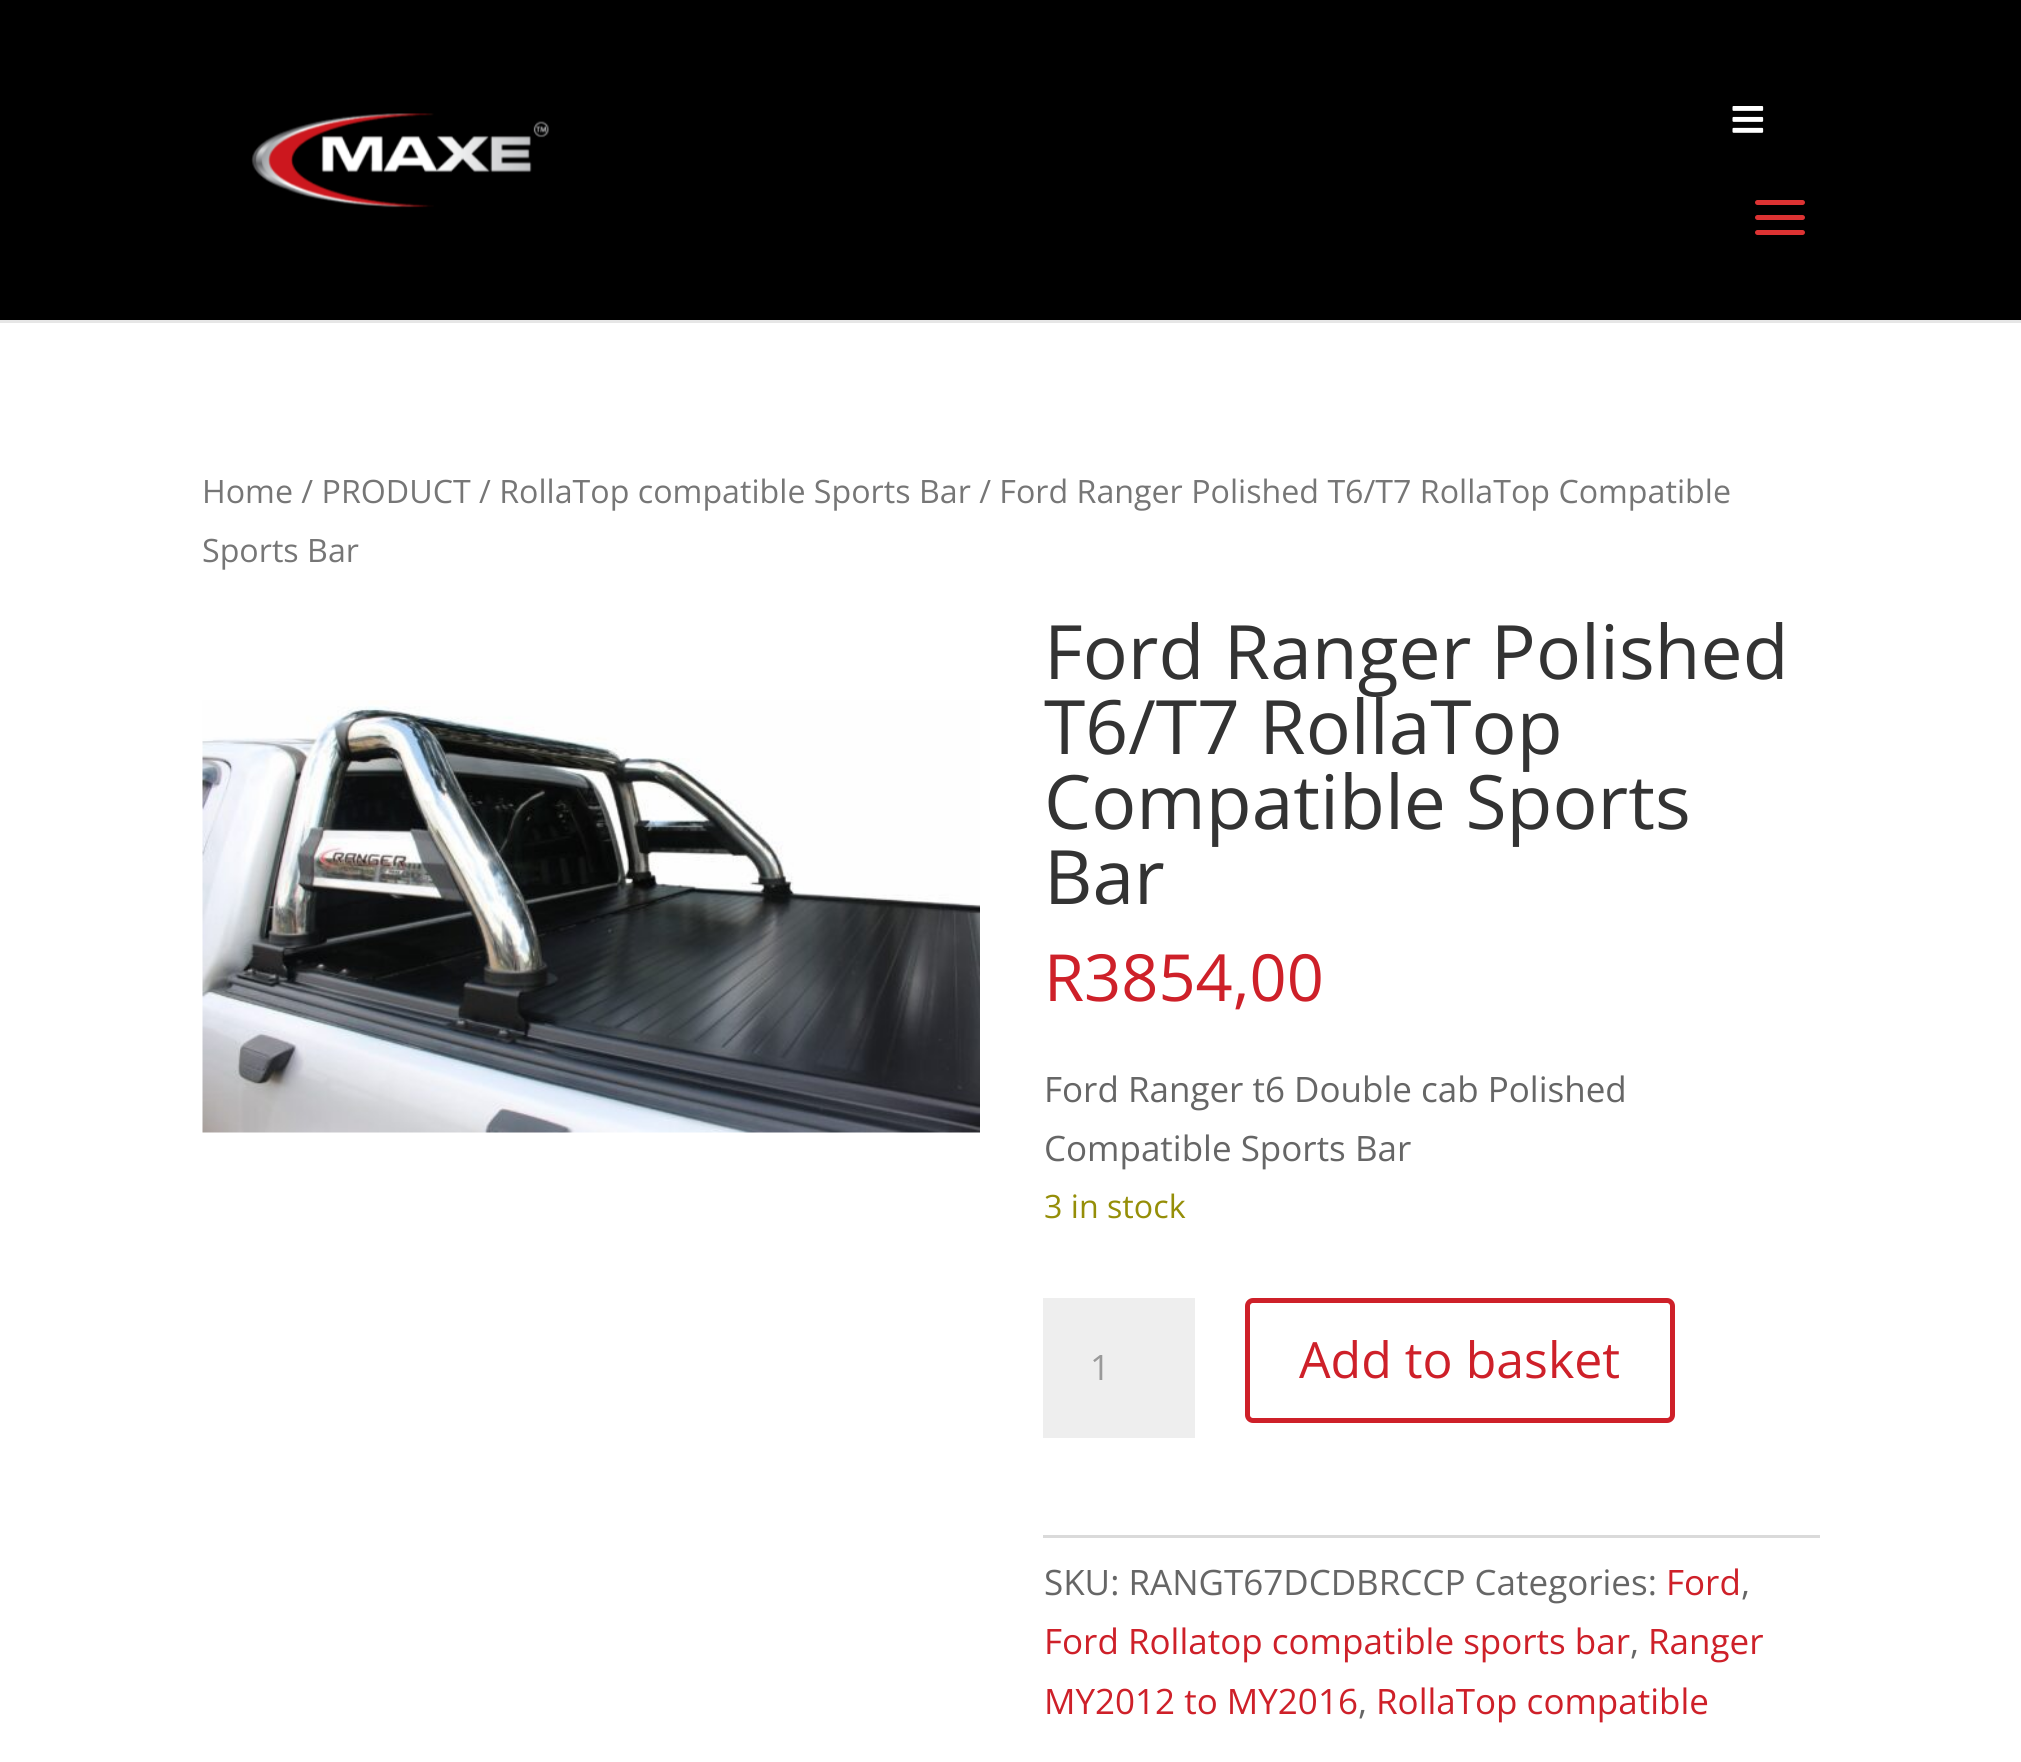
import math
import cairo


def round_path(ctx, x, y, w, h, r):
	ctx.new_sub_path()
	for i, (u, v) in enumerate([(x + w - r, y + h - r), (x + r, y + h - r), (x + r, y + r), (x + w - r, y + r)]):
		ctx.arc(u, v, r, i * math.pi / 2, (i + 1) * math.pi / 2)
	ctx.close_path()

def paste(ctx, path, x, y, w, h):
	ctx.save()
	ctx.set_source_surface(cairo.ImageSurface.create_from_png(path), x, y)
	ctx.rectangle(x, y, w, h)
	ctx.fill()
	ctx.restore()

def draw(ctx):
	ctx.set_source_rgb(1, 1, 1)
	ctx.paint()
	ctx.set_source_rgb(0.902, 0.902, 0.902)
	ctx.new_path()
	ctx.move_to(0, 320)
	ctx.line_to(0, 323)
	ctx.line_to(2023, 323)
	ctx.line_to(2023, 3)
	ctx.line_to(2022, 3)
	ctx.line_to(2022, 320)
	ctx.close_path()
	ctx.fill()
	ctx.set_source_rgb(0, 0, 0)
	ctx.rectangle(0, 0, 2021, 320)
	ctx.fill()
	paste(ctx, 'media/1.png', 251, 113, 299, 95)
	paste(ctx, 'media/2.png', 1732, 106, 32, 27)
	paste(ctx, 'media/3.png', 1755, 200, 50, 35)
	ctx.select_font_face('Open Sans')
	ctx.set_font_size(32.2)
	ctx.set_source_rgb(0.463, 0.463, 0.463)
	ctx.move_to(202, 503)
	ctx.show_text('Home / PRODUCT / RollaTop compatible Sports Bar / Ford Ranger Polished T6/T7 RollaTop Compatible')
	ctx.move_to(202, 562)
	ctx.show_text('Sports Bar')
	paste(ctx, 'media/4.png', 202, 700, 778, 433)
	ctx.set_font_size(75)
	ctx.set_source_rgb(0.2, 0.2, 0.2)
	for x, y, s in [
		(1044, 679, 'Ford Ranger Polished'),
		(1044, 754, 'T6/T7 RollaTop'),
		(1044, 829, 'Compatible Sports'),
		(1044, 904, 'Bar'),
	]:
		ctx.move_to(x, y)
		ctx.show_text(s)
	ctx.set_font_size(65)
	ctx.set_source_rgb(0.808, 0.125, 0.161)
	ctx.move_to(1044, 1001)
	ctx.show_text('R3854,00')
	ctx.set_font_size(35)
	ctx.set_source_rgb(0.4, 0.4, 0.4)
	ctx.move_to(1044, 1102)
	ctx.show_text('Ford Ranger t6 Double cab Polished')
	ctx.move_to(1044, 1161)
	ctx.show_text('Compatible Sports Bar')
	ctx.set_font_size(32.2)
	ctx.set_source_rgb(0.584, 0.557, 0.035)
	ctx.move_to(1044, 1218)
	ctx.show_text('3 in stock')
	ctx.set_source_rgb(0.933, 0.933, 0.933)
	ctx.rectangle(1043, 1298, 152, 140)
	ctx.fill()
	ctx.set_font_size(35)
	ctx.set_source_rgb(0.6, 0.6, 0.6)
	ctx.move_to(1090, 1380)
	ctx.show_text('1')
	round_path(ctx, 1247.5, 1300.5, 425, 120, 5.5)
	ctx.set_source_rgb(0.808, 0.125, 0.161)
	ctx.set_line_width(5)
	ctx.stroke()
	ctx.set_font_size(50)
	ctx.move_to(1299, 1378)
	ctx.show_text('Add to basket')
	ctx.set_source_rgb(0.855, 0.855, 0.855)
	ctx.rectangle(1043, 1535, 777, 3)
	ctx.fill()
	ctx.set_font_size(35)
	ctx.set_source_rgb(0.4, 0.4, 0.4)
	ctx.move_to(1044, 1595)
	ctx.show_text('SKU: RANGT67DCDBRCCP Categories:')
	ctx.set_source_rgb(0.808, 0.125, 0.161)
	ctx.move_to(1666, 1595)
	ctx.show_text('Ford')
	ctx.set_source_rgb(0.4, 0.4, 0.4)
	ctx.move_to(1741, 1595)
	ctx.show_text(',')
	ctx.set_source_rgb(0.808, 0.125, 0.161)
	ctx.move_to(1044, 1654)
	ctx.show_text('Ford Rollatop compatible sports bar')
	ctx.set_source_rgb(0.4, 0.4, 0.4)
	ctx.move_to(1630, 1654)
	ctx.show_text(',')
	ctx.set_source_rgb(0.808, 0.125, 0.161)
	ctx.move_to(1648, 1654)
	ctx.show_text('Ranger')
	ctx.move_to(1044, 1714)
	ctx.show_text('MY2012 to MY2016')
	ctx.set_source_rgb(0.4, 0.4, 0.4)
	ctx.move_to(1358, 1714)
	ctx.show_text(',')
	ctx.set_source_rgb(0.808, 0.125, 0.161)
	ctx.move_to(1376, 1714)
	ctx.show_text('RollaTop compatible')


surface = cairo.ImageSurface(cairo.FORMAT_RGB24, 2021, 1762)
ctx = cairo.Context(surface)
options = cairo.FontOptions()
options.set_hint_metrics(cairo.HINT_METRICS_OFF)
options.set_hint_style(cairo.HINT_STYLE_NONE)
ctx.set_font_options(options)
ctx.set_miter_limit(4)
draw(ctx)
surface.write_to_png('image.png')
